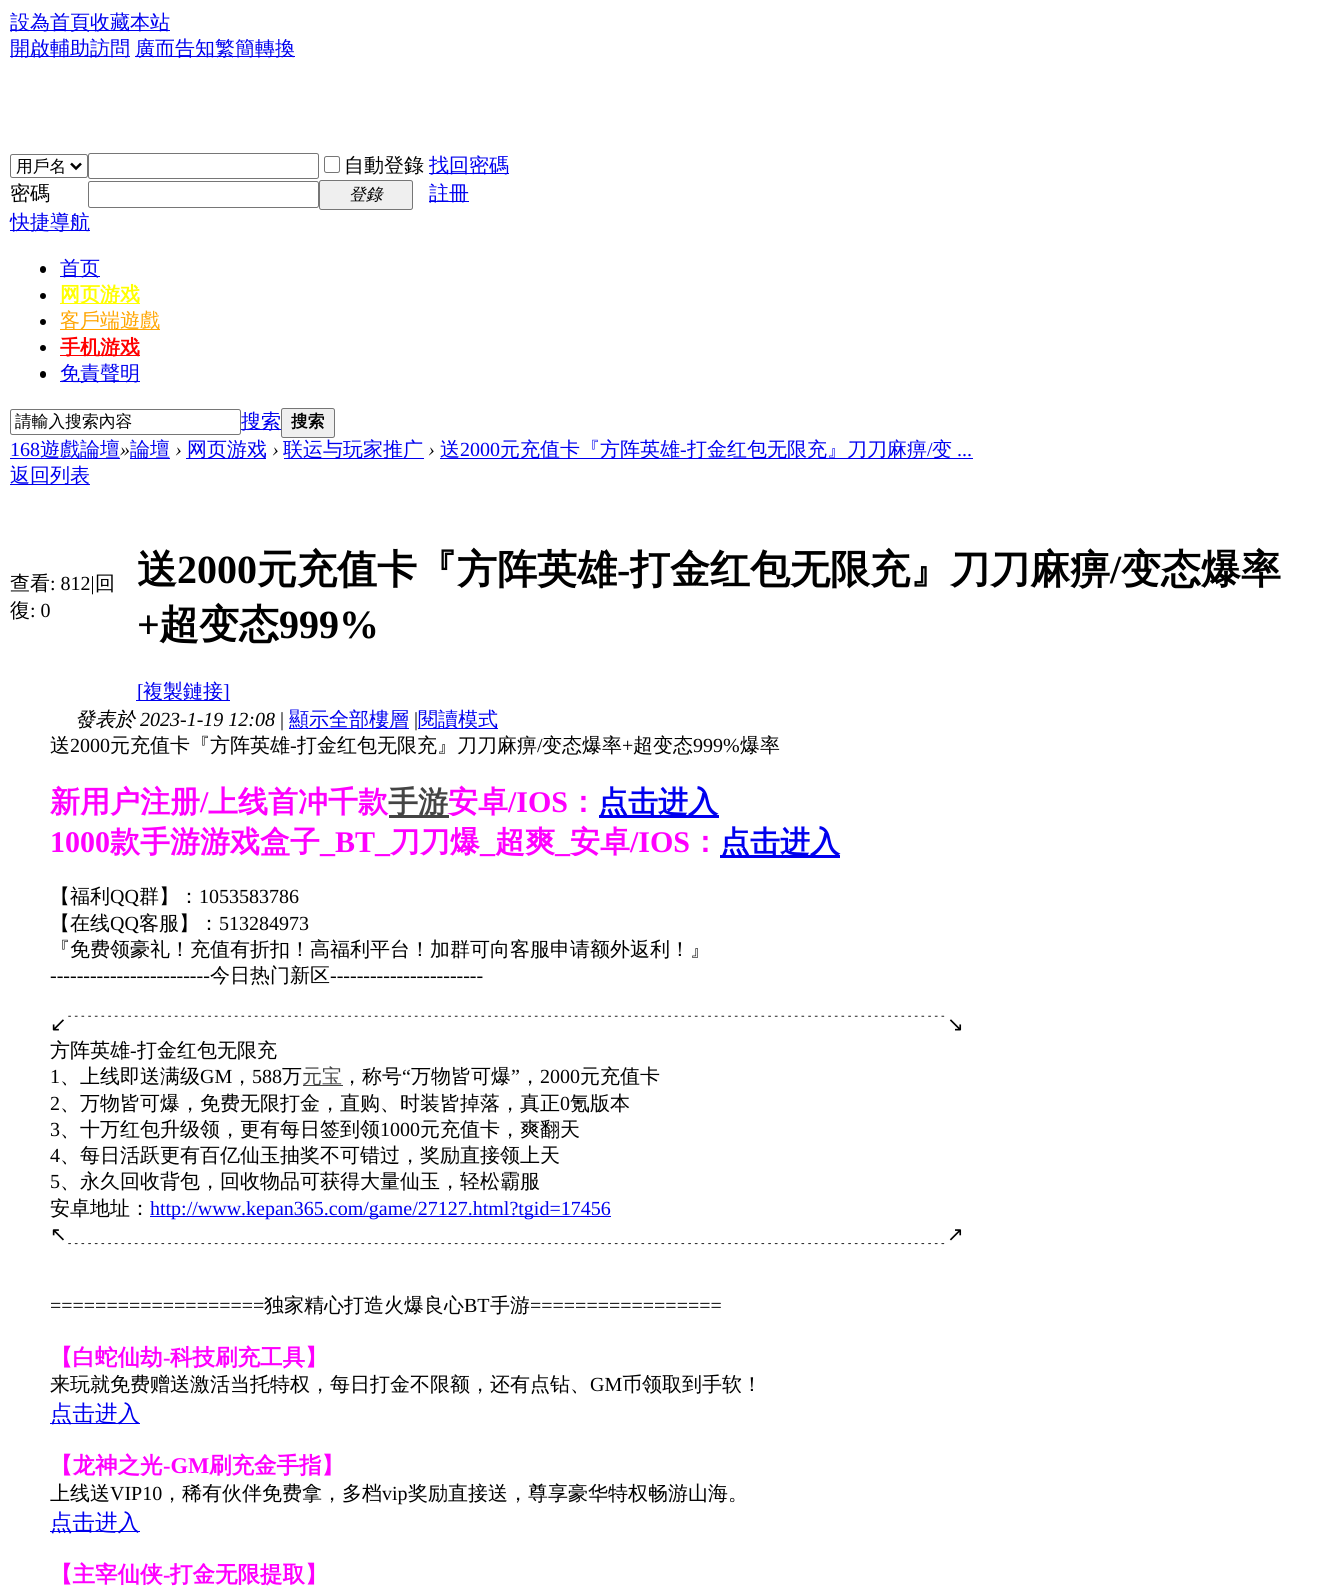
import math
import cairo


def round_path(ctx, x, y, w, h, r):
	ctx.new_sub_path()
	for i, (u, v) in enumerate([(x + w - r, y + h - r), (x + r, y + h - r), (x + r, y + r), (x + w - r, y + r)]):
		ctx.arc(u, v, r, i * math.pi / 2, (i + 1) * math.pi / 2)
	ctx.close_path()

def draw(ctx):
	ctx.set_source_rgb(1, 1, 1)
	ctx.paint()
	ctx.set_source_rgb(0, 0, 0.933)
	ctx.rectangle(10, 30, 160, 1)
	ctx.fill()
	ctx.select_font_face('WenQuanYi Zen Hei Medium')
	ctx.set_font_size(20)
	ctx.move_to(10, 29)
	ctx.show_text('設為首頁收藏本站')
	ctx.rectangle(10, 56, 120, 1)
	ctx.fill()
	ctx.move_to(10, 55)
	ctx.show_text('開啟輔助訪問')
	ctx.rectangle(135, 56, 160, 1)
	ctx.fill()
	ctx.move_to(135, 55)
	ctx.show_text('廣而告知繁簡轉換')
	round_path(ctx, 10.5, 154.5, 77, 23, 2)
	ctx.set_source_rgb(0.463, 0.463, 0.463)
	ctx.set_line_width(1)
	ctx.stroke()
	ctx.new_path()
	ctx.move_to(71, 163.5)
	ctx.line_to(76, 168.5)
	ctx.line_to(81, 163.5)
	ctx.set_source_rgb(0, 0, 0)
	ctx.set_line_width(2.5)
	ctx.stroke()
	ctx.set_font_size(16.75)
	ctx.move_to(16, 172)
	ctx.show_text('用戶名')
	round_path(ctx, 88.5, 153.5, 230, 25, 2)
	ctx.set_source_rgb(0.463, 0.463, 0.463)
	ctx.set_line_width(1)
	ctx.stroke()
	round_path(ctx, 324.5, 156.5, 15, 16, 2)
	ctx.stroke()
	ctx.set_font_size(20)
	ctx.set_source_rgb(0, 0, 0)
	ctx.move_to(344, 172)
	ctx.show_text('自動登錄')
	ctx.set_source_rgb(0, 0, 0.933)
	ctx.rectangle(429, 173, 80, 1)
	ctx.fill()
	ctx.move_to(429, 172)
	ctx.show_text('找回密碼')
	ctx.set_source_rgb(0, 0, 0)
	ctx.move_to(10, 200)
	ctx.show_text('密碼')
	round_path(ctx, 88.5, 181.5, 230, 26, 2)
	ctx.set_source_rgb(0.463, 0.463, 0.463)
	ctx.stroke()
	ctx.set_source_rgb(0.937, 0.937, 0.937)
	round_path(ctx, 319.5, 180.5, 93, 29, 2)
	ctx.fill_preserve()
	ctx.set_source_rgb(0.463, 0.463, 0.463)
	ctx.stroke()
	ctx.select_font_face('WenQuanYi Zen Hei Medium', cairo.FONT_SLANT_ITALIC)
	ctx.set_font_size(16.75)
	ctx.set_source_rgb(0, 0, 0)
	ctx.move_to(349, 200)
	ctx.show_text('登錄')
	ctx.set_source_rgb(0, 0, 0.933)
	ctx.rectangle(429, 201, 40, 1)
	ctx.fill()
	ctx.select_font_face('WenQuanYi Zen Hei Medium')
	ctx.set_font_size(20)
	ctx.move_to(429, 200)
	ctx.show_text('註冊')
	ctx.rectangle(10, 230, 80, 1)
	ctx.fill()
	ctx.move_to(10, 229)
	ctx.show_text('快捷導航')
	ctx.set_source_rgb(0, 0, 0)
	round_path(ctx, 40, 266, 6, 7, 3)
	ctx.fill()
	ctx.set_source_rgb(0, 0, 0.933)
	ctx.rectangle(60, 276, 40, 1)
	ctx.fill()
	ctx.move_to(60, 275)
	ctx.show_text('首页')
	ctx.set_source_rgb(0, 0, 0)
	ctx.new_path()
	ctx.arc(43, 296, 3, 0, 2 * math.pi)
	ctx.fill()
	ctx.set_source_rgb(1, 1, 0)
	ctx.rectangle(60, 303, 80, 1)
	ctx.fill()
	ctx.select_font_face('WenQuanYi Zen Hei', cairo.FONT_SLANT_NORMAL, cairo.FONT_WEIGHT_BOLD)
	ctx.move_to(60, 301)
	ctx.show_text('网页游戏')
	ctx.set_source_rgb(0, 0, 0)
	ctx.new_path()
	ctx.arc(43, 322, 3, 0, 2 * math.pi)
	ctx.fill()
	ctx.set_source_rgb(1, 0.647, 0)
	ctx.rectangle(60, 329, 100, 1)
	ctx.fill()
	ctx.select_font_face('WenQuanYi Zen Hei Medium')
	ctx.move_to(60, 327)
	ctx.show_text('客戶端遊戲')
	ctx.set_source_rgb(0, 0, 0)
	ctx.new_path()
	ctx.arc(43, 348, 3, 0, 2 * math.pi)
	ctx.fill()
	ctx.set_source_rgb(1, 0, 0)
	ctx.rectangle(60, 355, 80, 1)
	ctx.fill()
	ctx.select_font_face('WenQuanYi Zen Hei', cairo.FONT_SLANT_NORMAL, cairo.FONT_WEIGHT_BOLD)
	ctx.move_to(60, 354)
	ctx.show_text('手机游戏')
	ctx.set_source_rgb(0, 0, 0)
	round_path(ctx, 40, 371, 6, 7, 3)
	ctx.fill()
	ctx.set_source_rgb(0, 0, 0.933)
	ctx.rectangle(60, 381, 80, 1)
	ctx.fill()
	ctx.select_font_face('WenQuanYi Zen Hei Medium')
	ctx.move_to(60, 380)
	ctx.show_text('免責聲明')
	round_path(ctx, 10.5, 409.5, 230, 25, 2)
	ctx.set_source_rgb(0.463, 0.463, 0.463)
	ctx.stroke()
	ctx.set_font_size(16.75)
	ctx.set_source_rgb(0, 0, 0)
	ctx.move_to(15, 427)
	ctx.show_text('請輸入搜索內容')
	ctx.set_source_rgb(0, 0, 0.933)
	ctx.rectangle(241, 429, 40, 1)
	ctx.fill()
	ctx.set_font_size(20)
	ctx.move_to(241, 428)
	ctx.show_text('搜索')
	ctx.set_source_rgb(0.937, 0.937, 0.937)
	round_path(ctx, 281.5, 408.5, 53, 29, 2)
	ctx.fill_preserve()
	ctx.set_source_rgb(0.463, 0.463, 0.463)
	ctx.stroke()
	ctx.select_font_face('WenQuanYi Zen Hei', cairo.FONT_SLANT_NORMAL, cairo.FONT_WEIGHT_BOLD)
	ctx.set_font_size(16.75)
	ctx.set_source_rgb(0, 0, 0)
	ctx.move_to(291, 427)
	ctx.show_text('搜索')
	ctx.select_font_face('Liberation Serif')
	ctx.set_font_size(20)
	ctx.set_source_rgb(0, 0, 0.933)
	ctx.move_to(10, 456)
	ctx.show_text('168')
	ctx.rectangle(10, 458, 110, 1)
	ctx.fill()
	ctx.select_font_face('WenQuanYi Zen Hei Medium')
	ctx.move_to(40, 456)
	ctx.show_text('遊戲論壇')
	ctx.select_font_face('Liberation Serif', cairo.FONT_SLANT_ITALIC)
	ctx.set_source_rgb(0, 0, 0)
	ctx.move_to(120, 456)
	ctx.show_text('»')
	ctx.set_source_rgb(0, 0, 0.933)
	ctx.rectangle(130, 458, 40, 1)
	ctx.fill()
	ctx.select_font_face('WenQuanYi Zen Hei Medium')
	ctx.move_to(130, 456)
	ctx.show_text('論壇')
	ctx.select_font_face('Liberation Serif', cairo.FONT_SLANT_ITALIC)
	ctx.set_source_rgb(0, 0, 0)
	ctx.move_to(175, 456)
	ctx.show_text('›')
	ctx.set_source_rgb(0, 0, 0.933)
	ctx.rectangle(186, 458, 80, 1)
	ctx.fill()
	ctx.select_font_face('WenQuanYi Zen Hei Medium')
	ctx.move_to(187, 456)
	ctx.show_text('网页游戏')
	ctx.select_font_face('Liberation Serif', cairo.FONT_SLANT_ITALIC)
	ctx.set_source_rgb(0, 0, 0)
	ctx.move_to(272, 456)
	ctx.show_text('›')
	ctx.set_source_rgb(0, 0, 0.933)
	ctx.rectangle(284, 458, 140, 1)
	ctx.fill()
	ctx.select_font_face('WenQuanYi Zen Hei Medium')
	ctx.move_to(283, 456)
	ctx.show_text('联运与玩家推广')
	ctx.select_font_face('Liberation Serif', cairo.FONT_SLANT_ITALIC)
	ctx.set_source_rgb(0, 0, 0)
	ctx.move_to(428, 456)
	ctx.show_text('›')
	ctx.select_font_face('WenQuanYi Zen Hei Medium')
	ctx.set_source_rgb(0, 0, 0.933)
	ctx.move_to(440, 456)
	ctx.show_text('送')
	ctx.select_font_face('Liberation Serif')
	ctx.move_to(460, 456)
	ctx.show_text('2000')
	ctx.rectangle(440, 458, 533, 1)
	ctx.fill()
	ctx.select_font_face('WenQuanYi Zen Hei Medium')
	ctx.move_to(500, 456)
	ctx.show_text('元充值卡『方阵英雄')
	ctx.select_font_face('Liberation Serif')
	ctx.move_to(680, 456)
	ctx.show_text('-')
	ctx.select_font_face('WenQuanYi Zen Hei Medium')
	ctx.move_to(687, 456)
	ctx.show_text('打金红包无限充』刀刀麻痹')
	ctx.select_font_face('Liberation Serif')
	ctx.move_to(927, 456)
	ctx.show_text('/')
	ctx.select_font_face('WenQuanYi Zen Hei Medium')
	ctx.move_to(932, 456)
	ctx.show_text('变')
	ctx.select_font_face('Liberation Serif')
	ctx.move_to(957, 456)
	ctx.show_text('...')
	ctx.rectangle(10, 484, 80, 1)
	ctx.fill()
	ctx.select_font_face('WenQuanYi Zen Hei Medium')
	ctx.move_to(10, 482)
	ctx.show_text('返回列表')
	ctx.set_source_rgb(0, 0, 0)
	ctx.move_to(10, 590)
	ctx.show_text('查看')
	ctx.select_font_face('Liberation Serif')
	ctx.move_to(50, 590)
	ctx.show_text(': 812|')
	ctx.select_font_face('WenQuanYi Zen Hei Medium')
	ctx.move_to(95, 590)
	ctx.show_text('回')
	ctx.move_to(10, 617)
	ctx.show_text('復')
	ctx.select_font_face('Liberation Serif')
	ctx.move_to(30, 617)
	ctx.show_text(': 0')
	ctx.select_font_face('WenQuanYi Zen Hei', cairo.FONT_SLANT_NORMAL, cairo.FONT_WEIGHT_BOLD)
	ctx.set_font_size(40)
	ctx.move_to(137, 583)
	ctx.show_text('送')
	ctx.select_font_face('Liberation Serif', cairo.FONT_SLANT_NORMAL, cairo.FONT_WEIGHT_BOLD)
	ctx.move_to(177, 583)
	ctx.show_text('2000')
	ctx.select_font_face('WenQuanYi Zen Hei', cairo.FONT_SLANT_NORMAL, cairo.FONT_WEIGHT_BOLD)
	ctx.move_to(257, 583)
	ctx.show_text('元充值卡『方阵英雄')
	ctx.select_font_face('Liberation Serif', cairo.FONT_SLANT_NORMAL, cairo.FONT_WEIGHT_BOLD)
	ctx.move_to(617, 583)
	ctx.show_text('-')
	ctx.select_font_face('WenQuanYi Zen Hei', cairo.FONT_SLANT_NORMAL, cairo.FONT_WEIGHT_BOLD)
	ctx.move_to(630, 583)
	ctx.show_text('打金红包无限充』刀刀麻痹')
	ctx.select_font_face('Liberation Serif', cairo.FONT_SLANT_NORMAL, cairo.FONT_WEIGHT_BOLD)
	ctx.move_to(1110, 583)
	ctx.show_text('/')
	ctx.select_font_face('WenQuanYi Zen Hei', cairo.FONT_SLANT_NORMAL, cairo.FONT_WEIGHT_BOLD)
	ctx.move_to(1121, 583)
	ctx.show_text('变态爆率')
	ctx.select_font_face('Liberation Serif', cairo.FONT_SLANT_NORMAL, cairo.FONT_WEIGHT_BOLD)
	ctx.move_to(137, 638)
	ctx.show_text('+')
	ctx.select_font_face('WenQuanYi Zen Hei', cairo.FONT_SLANT_NORMAL, cairo.FONT_WEIGHT_BOLD)
	ctx.move_to(159, 638)
	ctx.show_text('超变态')
	ctx.select_font_face('Liberation Serif', cairo.FONT_SLANT_NORMAL, cairo.FONT_WEIGHT_BOLD)
	ctx.move_to(279, 638)
	ctx.show_text('999%')
	ctx.set_source_rgb(0, 0, 0.933)
	ctx.rectangle(136, 700, 94, 1)
	ctx.fill()
	ctx.select_font_face('Liberation Serif')
	ctx.set_font_size(20)
	ctx.move_to(137, 698)
	ctx.show_text('[')
	ctx.select_font_face('WenQuanYi Zen Hei Medium')
	ctx.move_to(143, 698)
	ctx.show_text('複製鏈接')
	ctx.select_font_face('Liberation Serif')
	ctx.move_to(223, 698)
	ctx.show_text(']')
	ctx.select_font_face('WenQuanYi Zen Hei Medium', cairo.FONT_SLANT_ITALIC)
	ctx.set_source_rgb(0, 0, 0)
	ctx.move_to(75, 726)
	ctx.show_text('發表於')
	ctx.select_font_face('Liberation Serif', cairo.FONT_SLANT_ITALIC)
	ctx.move_to(140, 726)
	ctx.show_text('2023-1-19 12:08')
	ctx.select_font_face('Liberation Serif')
	ctx.move_to(280, 726)
	ctx.show_text('|')
	ctx.set_source_rgb(0, 0, 0.933)
	ctx.rectangle(289, 728, 120, 1)
	ctx.fill()
	ctx.select_font_face('WenQuanYi Zen Hei Medium')
	ctx.move_to(289, 726)
	ctx.show_text('顯示全部樓層')
	ctx.select_font_face('Liberation Serif')
	ctx.set_source_rgb(0, 0, 0)
	ctx.move_to(414, 726)
	ctx.show_text('|')
	ctx.set_source_rgb(0, 0, 0.933)
	ctx.rectangle(418, 728, 80, 1)
	ctx.fill()
	ctx.select_font_face('WenQuanYi Zen Hei Medium')
	ctx.move_to(418, 726)
	ctx.show_text('閱讀模式')
	ctx.set_source_rgb(0, 0, 0)
	ctx.move_to(50, 752)
	ctx.show_text('送')
	ctx.select_font_face('Liberation Serif')
	ctx.move_to(70, 752)
	ctx.show_text('2000')
	ctx.select_font_face('WenQuanYi Zen Hei Medium')
	ctx.move_to(110, 752)
	ctx.show_text('元充值卡『方阵英雄')
	ctx.select_font_face('Liberation Serif')
	ctx.move_to(290, 752)
	ctx.show_text('-')
	ctx.select_font_face('WenQuanYi Zen Hei Medium')
	ctx.move_to(297, 752)
	ctx.show_text('打金红包无限充』刀刀麻痹')
	ctx.select_font_face('Liberation Serif')
	ctx.move_to(537, 752)
	ctx.show_text('/')
	ctx.select_font_face('WenQuanYi Zen Hei Medium')
	ctx.move_to(542, 752)
	ctx.show_text('变态爆率')
	ctx.select_font_face('Liberation Serif')
	ctx.move_to(622, 752)
	ctx.show_text('+')
	ctx.select_font_face('WenQuanYi Zen Hei Medium')
	ctx.move_to(633, 752)
	ctx.show_text('超变态')
	ctx.select_font_face('Liberation Serif')
	ctx.move_to(693, 752)
	ctx.show_text('999%')
	ctx.select_font_face('WenQuanYi Zen Hei Medium')
	ctx.move_to(740, 752)
	ctx.show_text('爆率')
	ctx.select_font_face('WenQuanYi Zen Hei', cairo.FONT_SLANT_NORMAL, cairo.FONT_WEIGHT_BOLD)
	ctx.set_font_size(30)
	ctx.set_source_rgb(1, 0, 1)
	ctx.move_to(50, 812)
	ctx.show_text('新用户注册')
	ctx.select_font_face('Liberation Serif', cairo.FONT_SLANT_NORMAL, cairo.FONT_WEIGHT_BOLD)
	ctx.move_to(200, 812)
	ctx.show_text('/')
	ctx.select_font_face('WenQuanYi Zen Hei', cairo.FONT_SLANT_NORMAL, cairo.FONT_WEIGHT_BOLD)
	ctx.move_to(208, 812)
	ctx.show_text('上线首冲千款')
	ctx.set_source_rgb(0.267, 0.267, 0.267)
	ctx.rectangle(389, 815, 60, 3)
	ctx.fill()
	ctx.move_to(388, 812)
	ctx.show_text('手游')
	ctx.set_source_rgb(1, 0, 1)
	ctx.move_to(448, 812)
	ctx.show_text('安卓')
	ctx.select_font_face('Liberation Serif', cairo.FONT_SLANT_NORMAL, cairo.FONT_WEIGHT_BOLD)
	ctx.move_to(508, 812)
	ctx.show_text('/IOS')
	ctx.select_font_face('WenQuanYi Zen Hei', cairo.FONT_SLANT_NORMAL, cairo.FONT_WEIGHT_BOLD)
	ctx.move_to(568, 812)
	ctx.show_text('：')
	ctx.set_source_rgb(0, 0, 0.933)
	ctx.rectangle(599, 815, 120, 3)
	ctx.fill()
	ctx.move_to(598, 812)
	ctx.show_text('点击进入')
	ctx.select_font_face('Liberation Serif', cairo.FONT_SLANT_NORMAL, cairo.FONT_WEIGHT_BOLD)
	ctx.set_source_rgb(1, 0, 1)
	ctx.move_to(50, 852)
	ctx.show_text('1000')
	ctx.select_font_face('WenQuanYi Zen Hei', cairo.FONT_SLANT_NORMAL, cairo.FONT_WEIGHT_BOLD)
	ctx.move_to(110, 852)
	ctx.show_text('款手游游戏盒子')
	ctx.select_font_face('Liberation Serif', cairo.FONT_SLANT_NORMAL, cairo.FONT_WEIGHT_BOLD)
	ctx.move_to(320, 852)
	ctx.show_text('_BT_')
	ctx.select_font_face('WenQuanYi Zen Hei', cairo.FONT_SLANT_NORMAL, cairo.FONT_WEIGHT_BOLD)
	ctx.move_to(390, 852)
	ctx.show_text('刀刀爆')
	ctx.select_font_face('Liberation Serif', cairo.FONT_SLANT_NORMAL, cairo.FONT_WEIGHT_BOLD)
	ctx.move_to(480, 852)
	ctx.show_text('_')
	ctx.select_font_face('WenQuanYi Zen Hei', cairo.FONT_SLANT_NORMAL, cairo.FONT_WEIGHT_BOLD)
	ctx.move_to(495, 852)
	ctx.show_text('超爽')
	ctx.move_to(570, 852)
	ctx.show_text('安卓')
	ctx.select_font_face('Liberation Serif', cairo.FONT_SLANT_NORMAL, cairo.FONT_WEIGHT_BOLD)
	ctx.move_to(630, 852)
	ctx.show_text('/IOS')
	ctx.select_font_face('WenQuanYi Zen Hei', cairo.FONT_SLANT_NORMAL, cairo.FONT_WEIGHT_BOLD)
	ctx.move_to(690, 852)
	ctx.show_text('：')
	ctx.set_source_rgb(0, 0, 0.933)
	ctx.rectangle(720, 855, 120, 3)
	ctx.fill()
	ctx.move_to(720, 852)
	ctx.show_text('点击进入')
	ctx.select_font_face('Liberation Serif', cairo.FONT_SLANT_NORMAL, cairo.FONT_WEIGHT_BOLD)
	ctx.set_source_rgb(1, 0, 1)
	ctx.move_to(555, 852)
	ctx.show_text('_')
	ctx.select_font_face('WenQuanYi Zen Hei Medium')
	ctx.set_font_size(20)
	ctx.set_source_rgb(0, 0, 0)
	ctx.move_to(50, 903)
	ctx.show_text('【福利')
	ctx.select_font_face('Liberation Serif')
	ctx.move_to(110, 903)
	ctx.show_text('QQ')
	ctx.select_font_face('WenQuanYi Zen Hei Medium')
	ctx.move_to(139, 903)
	ctx.show_text('群】：')
	ctx.select_font_face('Liberation Serif')
	ctx.move_to(199, 903)
	ctx.show_text('1053583786')
	ctx.select_font_face('WenQuanYi Zen Hei Medium')
	ctx.move_to(50, 930)
	ctx.show_text('【在线')
	ctx.select_font_face('Liberation Serif')
	ctx.move_to(110, 930)
	ctx.show_text('QQ')
	ctx.select_font_face('WenQuanYi Zen Hei Medium')
	ctx.move_to(139, 930)
	ctx.show_text('客服】：')
	ctx.select_font_face('Liberation Serif')
	ctx.move_to(219, 930)
	ctx.show_text('513284973')
	ctx.select_font_face('WenQuanYi Zen Hei Medium')
	ctx.move_to(50, 956)
	ctx.show_text('『免费领豪礼！充值有折扣！高福利平台！加群可向客服申请额外返利！』')
	ctx.select_font_face('Liberation Serif')
	ctx.move_to(50, 982)
	ctx.show_text('------------------------')
	ctx.select_font_face('WenQuanYi Zen Hei Medium')
	ctx.move_to(210, 982)
	ctx.show_text('今日热门新区')
	ctx.select_font_face('Liberation Serif')
	ctx.move_to(330, 982)
	ctx.show_text('-----------------------')
	ctx.select_font_face('WenQuanYi Zen Hei Medium')
	ctx.move_to(67, 1031)
	ctx.show_text('﹉﹉﹉﹉﹉﹉﹉﹉﹉﹉﹉﹉﹉﹉﹉﹉﹉﹉﹉﹉﹉﹉﹉﹉﹉﹉﹉﹉﹉﹉﹉﹉﹉﹉﹉﹉﹉﹉﹉﹉﹉﹉﹉﹉')
	ctx.select_font_face('DejaVu Sans')
	ctx.move_to(50, 1031)
	ctx.show_text('↙')
	ctx.move_to(947, 1031)
	ctx.show_text('↘')
	ctx.select_font_face('WenQuanYi Zen Hei Medium')
	ctx.move_to(50, 1057)
	ctx.show_text('方阵英雄')
	ctx.select_font_face('Liberation Serif')
	ctx.move_to(130, 1057)
	ctx.show_text('-')
	ctx.select_font_face('WenQuanYi Zen Hei Medium')
	ctx.move_to(137, 1057)
	ctx.show_text('打金红包无限充')
	ctx.select_font_face('Liberation Serif')
	ctx.move_to(50, 1083)
	ctx.show_text('1')
	ctx.select_font_face('WenQuanYi Zen Hei Medium')
	ctx.move_to(60, 1083)
	ctx.show_text('、上线即送满级')
	ctx.select_font_face('Liberation Serif')
	ctx.move_to(200, 1083)
	ctx.show_text('GM')
	ctx.select_font_face('WenQuanYi Zen Hei Medium')
	ctx.move_to(232, 1083)
	ctx.show_text('，')
	ctx.select_font_face('Liberation Serif')
	ctx.move_to(252, 1083)
	ctx.show_text('588')
	ctx.select_font_face('WenQuanYi Zen Hei Medium')
	ctx.move_to(282, 1083)
	ctx.show_text('万')
	ctx.set_source_rgb(0.267, 0.267, 0.267)
	ctx.rectangle(303, 1085, 40, 1)
	ctx.fill()
	ctx.move_to(302, 1083)
	ctx.show_text('元宝')
	ctx.set_source_rgb(0, 0, 0)
	ctx.move_to(342, 1083)
	ctx.show_text('，称号')
	ctx.select_font_face('Liberation Serif')
	ctx.move_to(402, 1083)
	ctx.show_text('“')
	ctx.select_font_face('WenQuanYi Zen Hei Medium')
	ctx.move_to(411, 1083)
	ctx.show_text('万物皆可爆')
	ctx.select_font_face('Liberation Serif')
	ctx.move_to(511, 1083)
	ctx.show_text('”')
	ctx.select_font_face('WenQuanYi Zen Hei Medium')
	ctx.move_to(520, 1083)
	ctx.show_text('，')
	ctx.select_font_face('Liberation Serif')
	ctx.move_to(540, 1083)
	ctx.show_text('2000')
	ctx.select_font_face('WenQuanYi Zen Hei Medium')
	ctx.move_to(580, 1083)
	ctx.show_text('元充值卡')
	ctx.select_font_face('Liberation Serif')
	ctx.move_to(50, 1110)
	ctx.show_text('2')
	ctx.select_font_face('WenQuanYi Zen Hei Medium')
	ctx.move_to(60, 1110)
	ctx.show_text('、万物皆可爆，免费无限打金，直购、时装皆掉落，真正')
	ctx.select_font_face('Liberation Serif')
	ctx.move_to(560, 1110)
	ctx.show_text('0')
	ctx.select_font_face('WenQuanYi Zen Hei Medium')
	ctx.move_to(570, 1110)
	ctx.show_text('氪版本')
	ctx.select_font_face('Liberation Serif')
	ctx.move_to(50, 1136)
	ctx.show_text('3')
	ctx.select_font_face('WenQuanYi Zen Hei Medium')
	ctx.move_to(60, 1136)
	ctx.show_text('、十万红包升级领，更有每日签到领')
	ctx.select_font_face('Liberation Serif')
	ctx.move_to(380, 1136)
	ctx.show_text('1000')
	ctx.select_font_face('WenQuanYi Zen Hei Medium')
	ctx.move_to(420, 1136)
	ctx.show_text('元充值卡，爽翻天')
	ctx.select_font_face('Liberation Serif')
	ctx.move_to(50, 1162)
	ctx.show_text('4')
	ctx.select_font_face('WenQuanYi Zen Hei Medium')
	ctx.move_to(60, 1162)
	ctx.show_text('、每日活跃更有百亿仙玉抽奖不可错过，奖励直接领上天')
	ctx.select_font_face('Liberation Serif')
	ctx.move_to(50, 1188)
	ctx.show_text('5')
	ctx.select_font_face('WenQuanYi Zen Hei Medium')
	ctx.move_to(60, 1188)
	ctx.show_text('、永久回收背包，回收物品可获得大量仙玉，轻松霸服')
	ctx.move_to(50, 1215)
	ctx.show_text('安卓地址：')
	ctx.set_source_rgb(0, 0, 0.933)
	ctx.rectangle(150, 1216, 461, 1)
	ctx.fill()
	ctx.select_font_face('Liberation Serif')
	ctx.move_to(150, 1215)
	ctx.show_text('http://www.kepan365.com/game/27127.html?tgid=17456')
	ctx.select_font_face('DejaVu Sans')
	ctx.set_source_rgb(0, 0, 0)
	ctx.move_to(50, 1241)
	ctx.show_text('↖')
	ctx.move_to(947, 1241)
	ctx.show_text('↗')
	ctx.select_font_face('WenQuanYi Zen Hei Medium')
	ctx.move_to(67, 1241)
	ctx.show_text('﹍﹍﹍﹍﹍﹍﹍﹍﹍﹍﹍﹍﹍﹍﹍﹍﹍﹍﹍﹍﹍﹍﹍﹍﹍﹍﹍﹍﹍﹍﹍﹍﹍﹍﹍﹍﹍﹍﹍﹍﹍﹍﹍﹍')
	ctx.select_font_face('Liberation Serif')
	ctx.move_to(50, 1312)
	ctx.show_text('===================')
	ctx.select_font_face('WenQuanYi Zen Hei Medium')
	ctx.move_to(264, 1312)
	ctx.show_text('独家精心打造火爆良心')
	ctx.select_font_face('Liberation Serif')
	ctx.move_to(464, 1312)
	ctx.show_text('BT')
	ctx.select_font_face('WenQuanYi Zen Hei Medium')
	ctx.move_to(490, 1312)
	ctx.show_text('手游')
	ctx.select_font_face('Liberation Serif')
	ctx.move_to(530, 1312)
	ctx.show_text('=================')
	ctx.select_font_face('WenQuanYi Zen Hei', cairo.FONT_SLANT_NORMAL, cairo.FONT_WEIGHT_BOLD)
	ctx.set_font_size(22.5)
	ctx.set_source_rgb(1, 0, 1)
	ctx.move_to(50, 1365)
	ctx.show_text('【白蛇仙劫')
	ctx.select_font_face('Liberation Serif', cairo.FONT_SLANT_NORMAL, cairo.FONT_WEIGHT_BOLD)
	ctx.move_to(163, 1365)
	ctx.show_text('-')
	ctx.select_font_face('WenQuanYi Zen Hei', cairo.FONT_SLANT_NORMAL, cairo.FONT_WEIGHT_BOLD)
	ctx.move_to(170, 1365)
	ctx.show_text('科技刷充工具】')
	ctx.select_font_face('WenQuanYi Zen Hei Medium')
	ctx.set_font_size(20)
	ctx.set_source_rgb(0, 0, 0)
	ctx.move_to(50, 1391)
	ctx.show_text('来玩就免费赠送激活当托特权，每日打金不限额，还有点钻、')
	ctx.select_font_face('Liberation Serif')
	ctx.move_to(590, 1391)
	ctx.show_text('GM')
	ctx.select_font_face('WenQuanYi Zen Hei Medium')
	ctx.move_to(622, 1391)
	ctx.show_text('币领取到手软！')
	ctx.set_source_rgb(0, 0, 0.933)
	ctx.rectangle(50, 1423, 90, 1)
	ctx.fill()
	ctx.set_font_size(22.5)
	ctx.move_to(50, 1421)
	ctx.show_text('点击进入')
	ctx.select_font_face('WenQuanYi Zen Hei', cairo.FONT_SLANT_NORMAL, cairo.FONT_WEIGHT_BOLD)
	ctx.set_source_rgb(1, 0, 1)
	ctx.move_to(50, 1473)
	ctx.show_text('【龙神之光')
	ctx.select_font_face('Liberation Serif', cairo.FONT_SLANT_NORMAL, cairo.FONT_WEIGHT_BOLD)
	ctx.move_to(163, 1473)
	ctx.show_text('-GM')
	ctx.select_font_face('WenQuanYi Zen Hei', cairo.FONT_SLANT_NORMAL, cairo.FONT_WEIGHT_BOLD)
	ctx.move_to(209, 1473)
	ctx.show_text('刷充金手指】')
	ctx.select_font_face('WenQuanYi Zen Hei Medium')
	ctx.set_font_size(20)
	ctx.set_source_rgb(0, 0, 0)
	ctx.move_to(50, 1500)
	ctx.show_text('上线送')
	ctx.select_font_face('Liberation Serif')
	ctx.move_to(110, 1500)
	ctx.show_text('VIP10')
	ctx.select_font_face('WenQuanYi Zen Hei Medium')
	ctx.move_to(162, 1500)
	ctx.show_text('，稀有伙伴免费拿，多档')
	ctx.select_font_face('Liberation Serif')
	ctx.move_to(382, 1500)
	ctx.show_text('vip')
	ctx.select_font_face('WenQuanYi Zen Hei Medium')
	ctx.move_to(408, 1500)
	ctx.show_text('奖励直接送，尊享豪华特权畅游山海。')
	ctx.set_source_rgb(0, 0, 0.933)
	ctx.rectangle(50, 1531, 90, 1)
	ctx.fill()
	ctx.set_font_size(22.5)
	ctx.move_to(50, 1530)
	ctx.show_text('点击进入')
	ctx.select_font_face('WenQuanYi Zen Hei', cairo.FONT_SLANT_NORMAL, cairo.FONT_WEIGHT_BOLD)
	ctx.set_source_rgb(1, 0, 1)
	ctx.move_to(50, 1582)
	ctx.show_text('【主宰仙侠')
	ctx.select_font_face('Liberation Serif', cairo.FONT_SLANT_NORMAL, cairo.FONT_WEIGHT_BOLD)
	ctx.move_to(163, 1582)
	ctx.show_text('-')
	ctx.select_font_face('WenQuanYi Zen Hei', cairo.FONT_SLANT_NORMAL, cairo.FONT_WEIGHT_BOLD)
	ctx.move_to(170, 1582)
	ctx.show_text('打金无限提取】')


surface = cairo.ImageSurface(cairo.FORMAT_RGB24, 1318, 1596)
ctx = cairo.Context(surface)
options = cairo.FontOptions()
options.set_hint_metrics(cairo.HINT_METRICS_OFF)
options.set_hint_style(cairo.HINT_STYLE_NONE)
ctx.set_font_options(options)
ctx.set_miter_limit(4)
draw(ctx)
surface.write_to_png('image.png')
